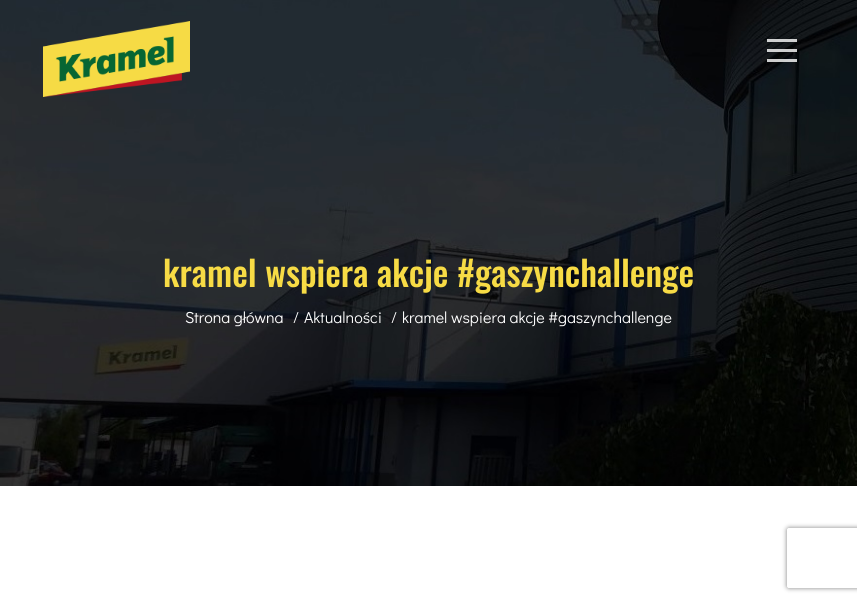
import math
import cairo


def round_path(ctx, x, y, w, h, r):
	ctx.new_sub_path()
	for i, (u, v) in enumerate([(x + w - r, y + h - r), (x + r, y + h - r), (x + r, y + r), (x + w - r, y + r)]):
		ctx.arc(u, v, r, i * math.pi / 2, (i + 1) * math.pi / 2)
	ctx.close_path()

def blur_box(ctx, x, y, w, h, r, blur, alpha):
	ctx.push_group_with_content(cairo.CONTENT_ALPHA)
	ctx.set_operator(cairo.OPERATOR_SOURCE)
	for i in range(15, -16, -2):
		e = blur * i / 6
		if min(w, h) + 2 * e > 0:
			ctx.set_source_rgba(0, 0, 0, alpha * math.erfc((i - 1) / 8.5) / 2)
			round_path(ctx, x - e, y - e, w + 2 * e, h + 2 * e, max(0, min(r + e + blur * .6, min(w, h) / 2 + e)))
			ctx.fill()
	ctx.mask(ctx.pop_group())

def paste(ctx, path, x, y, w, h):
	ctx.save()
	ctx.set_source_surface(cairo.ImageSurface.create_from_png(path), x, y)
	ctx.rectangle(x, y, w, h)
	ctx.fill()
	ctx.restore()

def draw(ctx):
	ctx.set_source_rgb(1, 1, 1)
	ctx.paint()
	paste(ctx, 'media/1.png', 0, 0, 857, 486)
	paste(ctx, 'media/2.png', 43, 21, 147, 76)
	ctx.set_source_rgba(1, 1, 1, 0.8)
	ctx.rectangle(767, 49, 30, 3)
	ctx.fill()
	ctx.rectangle(767, 39, 30, 3)
	ctx.fill()
	ctx.rectangle(767, 59, 30, 3)
	ctx.fill()
	ctx.select_font_face('Oswald Medium')
	ctx.set_font_size(35)
	ctx.set_source_rgb(0.965, 0.859, 0.271)
	ctx.move_to(163, 287)
	ctx.show_text('kramel wspiera akcje #gaszynchallenge')
	ctx.select_font_face('Didact Gothic')
	ctx.set_font_size(16)
	ctx.set_source_rgb(1, 1, 1)
	for x, y, s in [
		(185, 323, 'Strona główna'),
		(293, 323, '/'),
		(304, 323, 'Aktualności'),
		(391, 323, '/'),
		(402, 323, 'kramel wspiera akcje #gaszynchallenge'),
	]:
		ctx.move_to(x, y)
		ctx.show_text(s)
	ctx.save()
	ctx.set_fill_rule(cairo.FILL_RULE_EVEN_ODD)
	ctx.new_path()
	ctx.move_to(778, 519)
	ctx.line_to(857, 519)
	ctx.line_to(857, 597)
	ctx.line_to(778, 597)
	ctx.close_path()
	ctx.move_to(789, 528)
	ctx.line_to(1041, 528)
	ctx.curve_to(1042, 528, 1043, 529, 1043, 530)
	ctx.line_to(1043, 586)
	ctx.curve_to(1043, 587, 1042, 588, 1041, 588)
	ctx.line_to(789, 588)
	ctx.curve_to(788, 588, 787, 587, 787, 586)
	ctx.line_to(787, 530)
	ctx.curve_to(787, 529, 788, 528, 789, 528)
	ctx.close_path()
	ctx.clip()
	ctx.set_source_rgb(0.502, 0.502, 0.502)
	blur_box(ctx, 787, 528, 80, 60, 2, 2.5, 1)
	ctx.restore()


surface = cairo.ImageSurface(cairo.FORMAT_RGB24, 857, 602)
ctx = cairo.Context(surface)
options = cairo.FontOptions()
options.set_hint_metrics(cairo.HINT_METRICS_OFF)
options.set_hint_style(cairo.HINT_STYLE_NONE)
ctx.set_font_options(options)
ctx.set_miter_limit(4)
draw(ctx)
surface.write_to_png('image.png')
